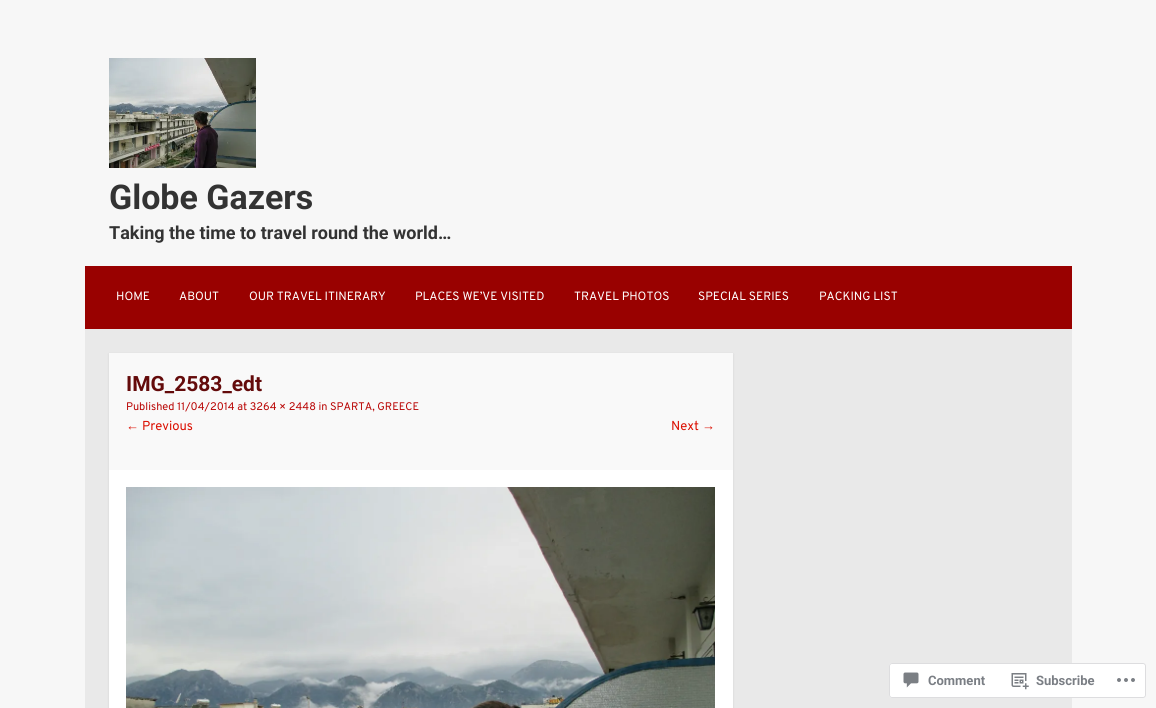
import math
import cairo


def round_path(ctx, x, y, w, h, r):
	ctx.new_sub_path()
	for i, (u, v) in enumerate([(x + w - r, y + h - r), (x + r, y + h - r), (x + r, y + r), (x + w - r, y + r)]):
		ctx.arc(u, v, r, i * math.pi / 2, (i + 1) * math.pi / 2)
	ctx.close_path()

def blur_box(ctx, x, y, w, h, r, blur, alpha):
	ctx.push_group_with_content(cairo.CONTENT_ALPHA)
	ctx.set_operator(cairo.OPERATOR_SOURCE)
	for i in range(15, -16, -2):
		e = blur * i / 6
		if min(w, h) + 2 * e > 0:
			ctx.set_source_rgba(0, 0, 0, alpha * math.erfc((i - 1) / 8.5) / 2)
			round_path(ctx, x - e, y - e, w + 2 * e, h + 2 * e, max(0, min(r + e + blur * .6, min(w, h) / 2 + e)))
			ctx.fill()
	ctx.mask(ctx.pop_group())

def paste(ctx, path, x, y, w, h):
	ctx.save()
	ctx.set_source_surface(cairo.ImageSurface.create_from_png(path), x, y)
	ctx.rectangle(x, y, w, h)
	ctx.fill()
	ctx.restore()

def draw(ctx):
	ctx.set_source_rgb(0.965, 0.965, 0.965)
	ctx.paint()
	paste(ctx, 'media/1.png', 109, 58, 147, 110)
	ctx.select_font_face('Roboto', cairo.FONT_SLANT_NORMAL, cairo.FONT_WEIGHT_BOLD)
	ctx.set_font_size(34)
	ctx.set_source_rgb(0.2, 0.2, 0.2)
	ctx.move_to(109, 209)
	ctx.show_text('Globe Gazers')
	ctx.set_font_size(18)
	ctx.move_to(109, 239)
	ctx.show_text('Taking the time to travel round the world…')
	ctx.set_source_rgb(0.6, 0.004, 0)
	ctx.rectangle(85, 266, 987, 63)
	ctx.fill()
	ctx.select_font_face('Overpass')
	ctx.set_font_size(12)
	ctx.set_source_rgb(1, 1, 1)
	for x, y, s in [
		(116, 300, 'HOME'),
		(179, 300, 'ABOUT'),
		(249, 300, 'OUR TRAVEL ITINERARY'),
		(415, 300, 'PLACES WE’VE VISITED'),
		(574, 300, 'TRAVEL PHOTOS'),
		(698, 300, 'SPECIAL SERIES'),
		(819, 300, 'PACKING LIST'),
	]:
		ctx.move_to(x, y)
		ctx.show_text(s)
	ctx.set_source_rgb(0.914, 0.914, 0.914)
	ctx.rectangle(85, 329, 987, 379)
	ctx.fill()
	ctx.set_source_rgb(0, 0, 0)
	blur_box(ctx, 109, 354, 624, 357, 0, 1, 0.1)
	ctx.set_source_rgb(1, 1, 1)
	ctx.rectangle(109, 470, 624, 238)
	ctx.fill()
	ctx.set_source_rgb(0.976, 0.976, 0.976)
	ctx.rectangle(109, 353, 624, 117)
	ctx.fill()
	ctx.select_font_face('Roboto', cairo.FONT_SLANT_NORMAL, cairo.FONT_WEIGHT_BOLD)
	ctx.set_font_size(21)
	ctx.set_source_rgb(0.392, 0.043, 0.043)
	ctx.move_to(126, 391)
	ctx.show_text('IMG_2583_edt')
	ctx.select_font_face('Overpass')
	ctx.set_font_size(11)
	ctx.set_source_rgb(0.725, 0.02, 0.016)
	ctx.move_to(126, 410)
	ctx.show_text('Published 11/04/2014 at 3264 × 2448 in SPARTA, GREECE')
	ctx.select_font_face('Liberation Sans')
	ctx.set_font_size(13)
	ctx.set_source_rgb(0.859, 0.055, 0)
	ctx.move_to(126, 430)
	ctx.show_text('←')
	ctx.select_font_face('Overpass')
	ctx.move_to(142, 430)
	ctx.show_text('Previous')
	ctx.move_to(671, 430)
	ctx.show_text('Next')
	ctx.select_font_face('Liberation Sans')
	ctx.move_to(702, 430)
	ctx.show_text('→')
	paste(ctx, 'media/2.png', 126, 487, 589, 221)
	ctx.set_source_rgba(1, 1, 1, 0.98)
	round_path(ctx, 889, 663, 257, 35, 3)
	ctx.fill()
	round_path(ctx, 889.5, 663.5, 256, 34, 2.5)
	ctx.set_source_rgba(0.863, 0.863, 0.871, 0.98)
	ctx.set_line_width(1)
	ctx.stroke()
	paste(ctx, 'media/3.png', 903, 672, 16, 16)
	ctx.select_font_face('Roboto', cairo.FONT_SLANT_NORMAL, cairo.FONT_WEIGHT_BOLD)
	ctx.set_source_rgb(0.478, 0.494, 0.518)
	ctx.move_to(928, 685)
	ctx.show_text('Comment')
	paste(ctx, 'media/4.png', 1011, 673, 18, 17)
	ctx.move_to(1036, 685)
	ctx.show_text('Subscribe')
	paste(ctx, 'media/5.png', 1117, 678, 18, 4)


surface = cairo.ImageSurface(cairo.FORMAT_RGB24, 1156, 708)
ctx = cairo.Context(surface)
options = cairo.FontOptions()
options.set_hint_metrics(cairo.HINT_METRICS_OFF)
options.set_hint_style(cairo.HINT_STYLE_NONE)
ctx.set_font_options(options)
ctx.set_miter_limit(4)
draw(ctx)
surface.write_to_png('image.png')
